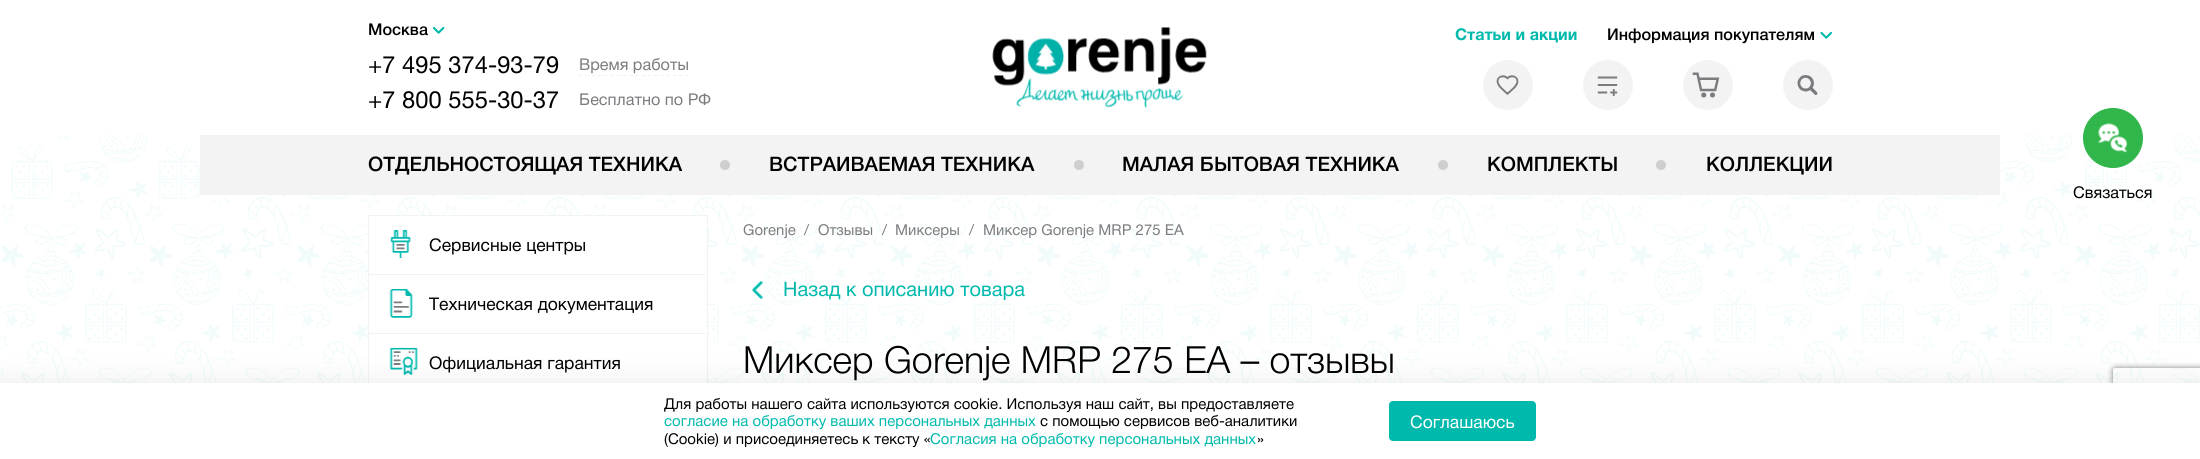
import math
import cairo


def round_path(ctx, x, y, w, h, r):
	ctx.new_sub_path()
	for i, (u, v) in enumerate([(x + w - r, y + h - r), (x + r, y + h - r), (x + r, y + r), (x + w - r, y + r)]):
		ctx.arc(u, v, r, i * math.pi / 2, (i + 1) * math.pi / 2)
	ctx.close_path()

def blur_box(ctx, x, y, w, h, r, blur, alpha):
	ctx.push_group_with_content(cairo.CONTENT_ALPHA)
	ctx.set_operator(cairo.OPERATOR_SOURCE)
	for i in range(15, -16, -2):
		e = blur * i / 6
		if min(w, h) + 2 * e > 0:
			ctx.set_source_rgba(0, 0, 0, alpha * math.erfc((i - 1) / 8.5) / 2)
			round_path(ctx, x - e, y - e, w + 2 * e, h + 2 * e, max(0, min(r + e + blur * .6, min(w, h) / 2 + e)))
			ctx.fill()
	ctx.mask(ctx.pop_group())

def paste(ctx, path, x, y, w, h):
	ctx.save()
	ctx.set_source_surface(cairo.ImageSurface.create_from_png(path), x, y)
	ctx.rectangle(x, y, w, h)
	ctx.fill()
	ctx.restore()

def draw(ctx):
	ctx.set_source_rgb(1, 1, 1)
	ctx.paint()
	paste(ctx, 'media/1.png', 0, 135, 2200, 248)
	ctx.select_font_face('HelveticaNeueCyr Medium')
	ctx.set_font_size(16.25)
	ctx.set_source_rgb(0, 0, 0)
	ctx.move_to(368, 35)
	ctx.show_text('Москва')
	paste(ctx, 'media/2.png', 433, 26, 12, 8)
	ctx.select_font_face('HelveticaNeueCyr')
	ctx.set_font_size(23.75)
	ctx.move_to(368, 73)
	ctx.show_text('+7 495 374-93-79')
	ctx.set_font_size(16.25)
	ctx.set_source_rgb(0.482, 0.486, 0.498)
	ctx.move_to(579, 70)
	ctx.show_text('Время работы')
	ctx.new_path()
	ctx.move_to(579, 75.5)
	ctx.line_to(689, 75.5)
	ctx.set_source_rgb(0.953, 0.953, 0.953)
	ctx.set_line_width(1.2)
	ctx.set_dash([3.75, 2.5])
	ctx.stroke()
	ctx.set_font_size(23.75)
	ctx.set_source_rgb(0, 0, 0)
	ctx.move_to(368, 108)
	ctx.show_text('+7 800 555-30-37')
	ctx.set_font_size(16.25)
	ctx.set_source_rgb(0.482, 0.486, 0.498)
	ctx.move_to(579, 105)
	ctx.show_text('Бесплатно по РФ')
	paste(ctx, 'media/3.png', 992, 27, 215, 81)
	ctx.select_font_face('HelveticaNeueCyr', cairo.FONT_SLANT_NORMAL, cairo.FONT_WEIGHT_BOLD)
	ctx.set_source_rgb(0, 0.725, 0.678)
	ctx.move_to(1455, 40)
	ctx.show_text('Статьи и акции')
	ctx.select_font_face('HelveticaNeueCyr Medium')
	ctx.set_source_rgb(0, 0, 0)
	ctx.move_to(1607, 40)
	ctx.show_text('Информация покупателям')
	paste(ctx, 'media/4.png', 1820, 31, 12, 8)
	ctx.set_source_rgb(0.953, 0.953, 0.953)
	ctx.arc(1508, 85, 25, 0, 2 * math.pi)
	ctx.fill()
	paste(ctx, 'media/5.png', 1496, 75, 23, 20)
	ctx.arc(1608, 85, 25, 0, 2 * math.pi)
	ctx.fill()
	paste(ctx, 'media/6.png', 1597, 76, 21, 20)
	ctx.arc(1708, 85, 25, 0, 2 * math.pi)
	ctx.fill()
	paste(ctx, 'media/7.png', 1692, 72, 28, 26)
	ctx.arc(1808, 85, 25, 0, 2 * math.pi)
	ctx.fill()
	paste(ctx, 'media/8.png', 1797, 75, 21, 20)
	ctx.rectangle(200, 135, 1800, 60)
	ctx.fill()
	ctx.set_font_size(20)
	ctx.set_source_rgb(0, 0, 0)
	ctx.move_to(368, 171)
	ctx.show_text('ОТДЕЛЬНОСТОЯЩАЯ ТЕХНИКА')
	ctx.set_source_rgb(0.812, 0.812, 0.816)
	ctx.new_path()
	ctx.arc(725, 165, 5, 0, 2 * math.pi)
	ctx.fill()
	ctx.set_source_rgb(0, 0, 0)
	ctx.move_to(769, 171)
	ctx.show_text('ВСТРАИВАЕМАЯ ТЕХНИКА')
	ctx.set_source_rgb(0.812, 0.812, 0.816)
	ctx.new_path()
	ctx.arc(1079, 165, 5, 0, 2 * math.pi)
	ctx.fill()
	ctx.set_source_rgb(0, 0, 0)
	ctx.move_to(1122, 171)
	ctx.show_text('МАЛАЯ БЫТОВАЯ ТЕХНИКА')
	ctx.set_source_rgb(0.812, 0.812, 0.816)
	ctx.new_path()
	ctx.arc(1443, 165, 5, 0, 2 * math.pi)
	ctx.fill()
	ctx.set_source_rgb(0, 0, 0)
	ctx.move_to(1487, 171)
	ctx.show_text('КОМПЛЕКТЫ')
	ctx.set_source_rgb(0.812, 0.812, 0.816)
	ctx.new_path()
	ctx.arc(1661, 165, 5, 0, 2 * math.pi)
	ctx.fill()
	ctx.set_source_rgb(0, 0, 0)
	ctx.move_to(1706, 171)
	ctx.show_text('КОЛЛЕКЦИИ')
	ctx.set_source_rgb(0.192, 0.714, 0.294)
	ctx.new_path()
	ctx.arc(2113, 138, 29.5, 0, 2 * math.pi)
	ctx.fill_preserve()
	ctx.set_line_width(1)
	ctx.set_dash([])
	ctx.stroke()
	paste(ctx, 'media/9.png', 2098, 123, 30, 30)
	ctx.select_font_face('HelveticaNeueCyr')
	ctx.set_font_size(16.25)
	ctx.set_source_rgb(0, 0, 0)
	ctx.move_to(2073, 198)
	ctx.show_text('Связаться')
	ctx.rectangle(368.5, 215.5, 339, 177)
	ctx.set_source_rgb(0.953, 0.953, 0.953)
	ctx.stroke()
	ctx.rectangle(369, 274, 337, 1)
	ctx.fill()
	ctx.set_source_rgb(1, 1, 1)
	ctx.rectangle(369, 216, 337, 58)
	ctx.fill()
	paste(ctx, 'media/10.png', 390, 230, 21, 28)
	ctx.set_font_size(17.5)
	ctx.set_source_rgb(0, 0, 0)
	ctx.move_to(429, 251)
	ctx.show_text('Сервисные центры')
	ctx.set_source_rgb(0.953, 0.953, 0.953)
	ctx.rectangle(369, 333, 337, 1)
	ctx.fill()
	ctx.set_source_rgb(1, 1, 1)
	ctx.rectangle(369, 275, 337, 58)
	ctx.fill()
	paste(ctx, 'media/11.png', 389, 289, 24, 29)
	ctx.set_source_rgb(0, 0, 0)
	ctx.move_to(429, 310)
	ctx.show_text('Техническая документация')
	ctx.set_source_rgb(1, 1, 1)
	ctx.rectangle(369, 334, 337, 49)
	ctx.fill()
	paste(ctx, 'media/12.png', 389, 347, 29, 28)
	ctx.set_source_rgb(0, 0, 0)
	ctx.move_to(429, 369)
	ctx.show_text('Официальная гарантия')
	ctx.set_font_size(15)
	ctx.set_source_rgb(0.482, 0.486, 0.498)
	for x, y, s in [
		(743, 235, 'Gorenje'),
		(804, 235, '/'),
		(818, 235, 'Отзывы'),
		(882, 235, '/'),
		(895, 235, 'Миксеры'),
		(969, 235, '/'),
		(983, 235, 'Миксер Gorenje MRP 275 EA'),
	]:
		ctx.move_to(x, y)
		ctx.show_text(s)
	paste(ctx, 'media/13.png', 752, 281, 11, 18)
	ctx.set_font_size(20)
	ctx.set_source_rgb(0, 0.725, 0.678)
	ctx.move_to(783, 296)
	ctx.show_text('Назад к описанию товара')
	ctx.select_font_face('HelveticaNeueCyr Light')
	ctx.set_font_size(37.5)
	ctx.set_source_rgb(0, 0, 0)
	ctx.move_to(743, 373)
	ctx.show_text('Миксер Gorenje MRP 275 EA – отзывы')
	ctx.set_source_rgb(0, 0, 0)
	blur_box(ctx, 0, 385, 2200, 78, 0, 15, 0.1)
	ctx.save()
	ctx.set_fill_rule(cairo.FILL_RULE_EVEN_ODD)
	ctx.new_path()
	ctx.move_to(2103, 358)
	ctx.line_to(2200, 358)
	ctx.line_to(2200, 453)
	ctx.line_to(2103, 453)
	ctx.close_path()
	ctx.move_to(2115.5, 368)
	ctx.line_to(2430.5, 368)
	ctx.curve_to(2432, 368, 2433, 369, 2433, 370.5)
	ctx.line_to(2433, 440.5)
	ctx.curve_to(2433, 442, 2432, 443, 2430.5, 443)
	ctx.line_to(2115.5, 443)
	ctx.curve_to(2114, 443, 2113, 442, 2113, 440.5)
	ctx.line_to(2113, 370.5)
	ctx.curve_to(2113, 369, 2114, 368, 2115.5, 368)
	ctx.close_path()
	ctx.clip()
	ctx.set_source_rgb(0.502, 0.502, 0.502)
	blur_box(ctx, 2113, 368, 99, 75, 2.5, 3, 1)
	ctx.restore()
	ctx.set_source_rgb(1, 1, 1)
	ctx.rectangle(0, 383, 2200, 76)
	ctx.fill()
	ctx.select_font_face('HelveticaNeueCyr')
	ctx.set_font_size(15)
	ctx.set_source_rgb(0, 0, 0)
	ctx.move_to(664, 409)
	ctx.show_text('Для работы нашего сайта используются cookie. Используя наш сайт, вы предоставляете')
	ctx.set_source_rgb(0, 0.725, 0.678)
	ctx.move_to(664, 426)
	ctx.show_text('согласие на обработку ваших персональных данных')
	ctx.set_source_rgb(0, 0, 0)
	ctx.move_to(1040, 426)
	ctx.show_text('с помощью сервисов веб-аналитики')
	ctx.move_to(664, 444)
	ctx.show_text('(Cookie) и присоединяетесь к тексту «')
	ctx.set_source_rgb(0, 0.725, 0.678)
	ctx.move_to(930, 444)
	ctx.show_text('Согласия на обработку персональных данных')
	ctx.set_source_rgb(0, 0, 0)
	ctx.move_to(1257, 444)
	ctx.show_text('»')
	ctx.set_source_rgb(0, 0.725, 0.678)
	round_path(ctx, 1389.5, 401.5, 146, 39, 3.5)
	ctx.fill_preserve()
	ctx.stroke()
	ctx.set_font_size(17.5)
	ctx.set_source_rgb(1, 1, 1)
	ctx.move_to(1410, 428)
	ctx.show_text('Соглашаюсь')


surface = cairo.ImageSurface(cairo.FORMAT_RGB24, 2200, 459)
ctx = cairo.Context(surface)
options = cairo.FontOptions()
options.set_hint_metrics(cairo.HINT_METRICS_OFF)
options.set_hint_style(cairo.HINT_STYLE_NONE)
ctx.set_font_options(options)
ctx.set_miter_limit(4)
draw(ctx)
surface.write_to_png('image.png')
